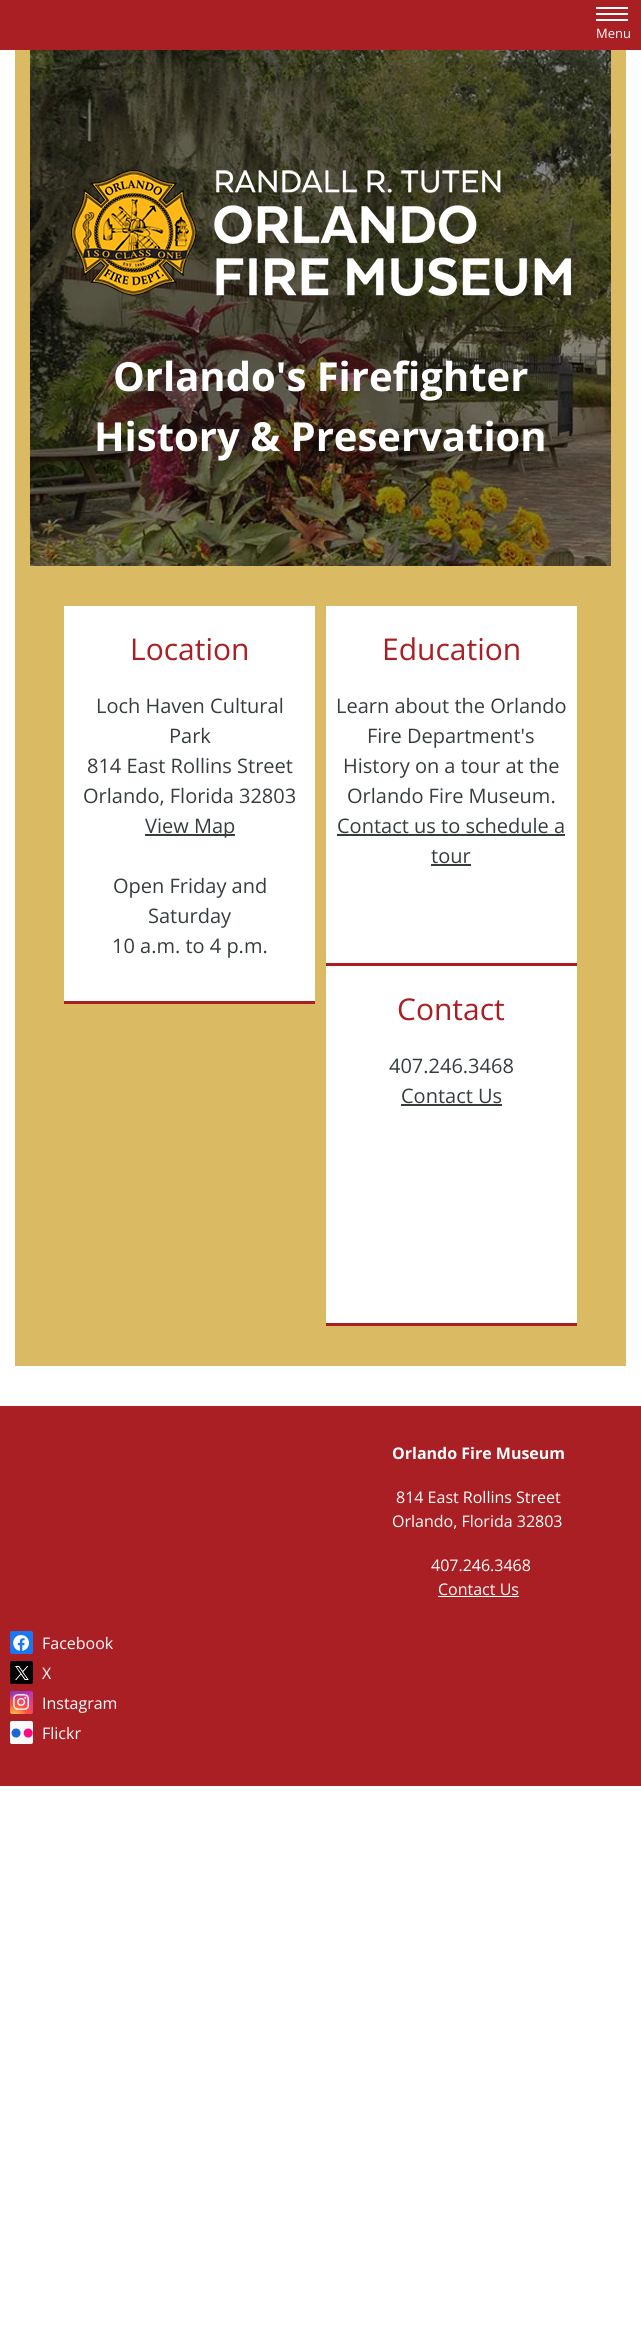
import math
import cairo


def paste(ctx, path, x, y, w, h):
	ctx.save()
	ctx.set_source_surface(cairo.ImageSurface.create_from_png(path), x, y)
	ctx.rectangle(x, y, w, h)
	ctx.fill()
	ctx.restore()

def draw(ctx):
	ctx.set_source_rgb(1, 1, 1)
	ctx.paint()
	ctx.set_source_rgb(0.667, 0.122, 0.137)
	ctx.rectangle(0, 0, 641, 50)
	ctx.fill()
	ctx.set_source_rgb(1, 1, 1)
	ctx.rectangle(596, 13, 32, 2)
	ctx.rectangle(596, 7, 32, 2)
	ctx.rectangle(596, 19, 32, 2)
	ctx.fill()
	ctx.select_font_face('Open Sans')
	ctx.set_font_size(13)
	ctx.move_to(596, 38)
	ctx.show_text('Menu')
	ctx.set_source_rgb(0.859, 0.729, 0.392)
	ctx.rectangle(15, 50, 611, 1316)
	ctx.fill()
	paste(ctx, 'media/1.png', 30, 50, 581, 516)
	paste(ctx, 'media/2.png', 71, 170, 500, 126)
	ctx.select_font_face('Open Sans', cairo.FONT_SLANT_NORMAL, cairo.FONT_WEIGHT_BOLD)
	ctx.set_font_size(40)
	ctx.set_source_rgb(1, 1, 1)
	ctx.move_to(113, 391)
	ctx.show_text('Orlando\'s Firefighter')
	ctx.move_to(94, 451)
	ctx.show_text('History & Preservation')
	ctx.rectangle(64, 606, 251, 395)
	ctx.fill()
	ctx.set_source_rgb(0.667, 0.122, 0.137)
	ctx.rectangle(64, 1001, 251, 3)
	ctx.fill()
	ctx.select_font_face('Open Sans')
	ctx.set_font_size(30)
	ctx.move_to(130, 660)
	ctx.show_text('Location')
	ctx.set_font_size(20)
	ctx.set_source_rgb(0.216, 0.239, 0.247)
	for x, y, s in [
		(96, 713, 'Loch Haven Cultural'),
		(169, 743, 'Park'),
		(87, 773, '814 East Rollins Street'),
		(83, 803, 'Orlando, Florida 32803'),
	]:
		ctx.move_to(x, y)
		ctx.show_text(s)
	ctx.rectangle(145, 834, 90, 2)
	ctx.fill()
	for x, y, s in [
		(145, 833, 'View Map'),
		(113, 893, 'Open Friday and'),
		(148, 923, 'Saturday'),
		(112, 953, '10 a.m. to 4 p.m.'),
	]:
		ctx.move_to(x, y)
		ctx.show_text(s)
	ctx.set_source_rgb(1, 1, 1)
	ctx.rectangle(326, 606, 251, 357)
	ctx.fill()
	ctx.set_source_rgb(0.667, 0.122, 0.137)
	ctx.rectangle(326, 963, 251, 3)
	ctx.fill()
	ctx.set_font_size(30)
	ctx.move_to(382, 660)
	ctx.show_text('Education')
	ctx.set_font_size(20)
	ctx.set_source_rgb(0.216, 0.239, 0.247)
	for x, y, s in [
		(336, 713, 'Learn about the Orlando'),
		(367, 743, 'Fire Department\'s'),
		(343, 773, 'History on a tour at the'),
		(347, 803, 'Orlando Fire Museum.'),
		(337, 833, 'Contact us to schedule a'),
	]:
		ctx.move_to(x, y)
		ctx.show_text(s)
	ctx.rectangle(337, 834, 228, 2)
	ctx.fill()
	ctx.move_to(431, 863)
	ctx.show_text('tour')
	ctx.rectangle(431, 864, 40, 2)
	ctx.fill()
	ctx.set_source_rgb(1, 1, 1)
	ctx.rectangle(326, 966, 251, 357)
	ctx.fill()
	ctx.set_source_rgb(0.667, 0.122, 0.137)
	ctx.rectangle(326, 1323, 251, 3)
	ctx.fill()
	ctx.set_font_size(30)
	ctx.move_to(397, 1020)
	ctx.show_text('Contact')
	ctx.set_font_size(20)
	ctx.set_source_rgb(0.216, 0.239, 0.247)
	ctx.move_to(389, 1073)
	ctx.show_text('407.246.3468')
	ctx.move_to(401, 1103)
	ctx.show_text('Contact Us')
	ctx.rectangle(401, 1104, 101, 2)
	ctx.fill()
	ctx.set_source_rgb(0.667, 0.122, 0.137)
	ctx.rectangle(0, 1406, 641, 380)
	ctx.fill()
	ctx.select_font_face('Open Sans', cairo.FONT_SLANT_NORMAL, cairo.FONT_WEIGHT_BOLD)
	ctx.set_font_size(16)
	ctx.set_source_rgb(1, 1, 1)
	ctx.move_to(392, 1459)
	ctx.show_text('Orlando Fire Museum')
	ctx.select_font_face('Open Sans')
	for x, y, s in [
		(396, 1503, '814 East Rollins Street'),
		(392, 1527, 'Orlando, Florida 32803'),
		(431, 1571, '407.246.3468'),
		(438, 1595, 'Contact Us'),
	]:
		ctx.move_to(x, y)
		ctx.show_text(s)
	ctx.rectangle(438, 1596, 81, 1)
	ctx.fill()
	paste(ctx, 'media/3.png', 10, 1631, 23, 23)
	ctx.move_to(42, 1649)
	ctx.show_text('Facebook')
	paste(ctx, 'media/4.png', 10, 1661, 23, 23)
	ctx.move_to(42, 1679)
	ctx.show_text('X')
	paste(ctx, 'media/5.png', 10, 1691, 23, 23)
	ctx.move_to(42, 1709)
	ctx.show_text('Instagram')
	paste(ctx, 'media/6.png', 10, 1721, 23, 23)
	ctx.move_to(42, 1739)
	ctx.show_text('Flickr')


surface = cairo.ImageSurface(cairo.FORMAT_RGB24, 641, 2333)
ctx = cairo.Context(surface)
options = cairo.FontOptions()
options.set_hint_metrics(cairo.HINT_METRICS_OFF)
options.set_hint_style(cairo.HINT_STYLE_NONE)
ctx.set_font_options(options)
ctx.set_miter_limit(4)
draw(ctx)
surface.write_to_png('image.png')
